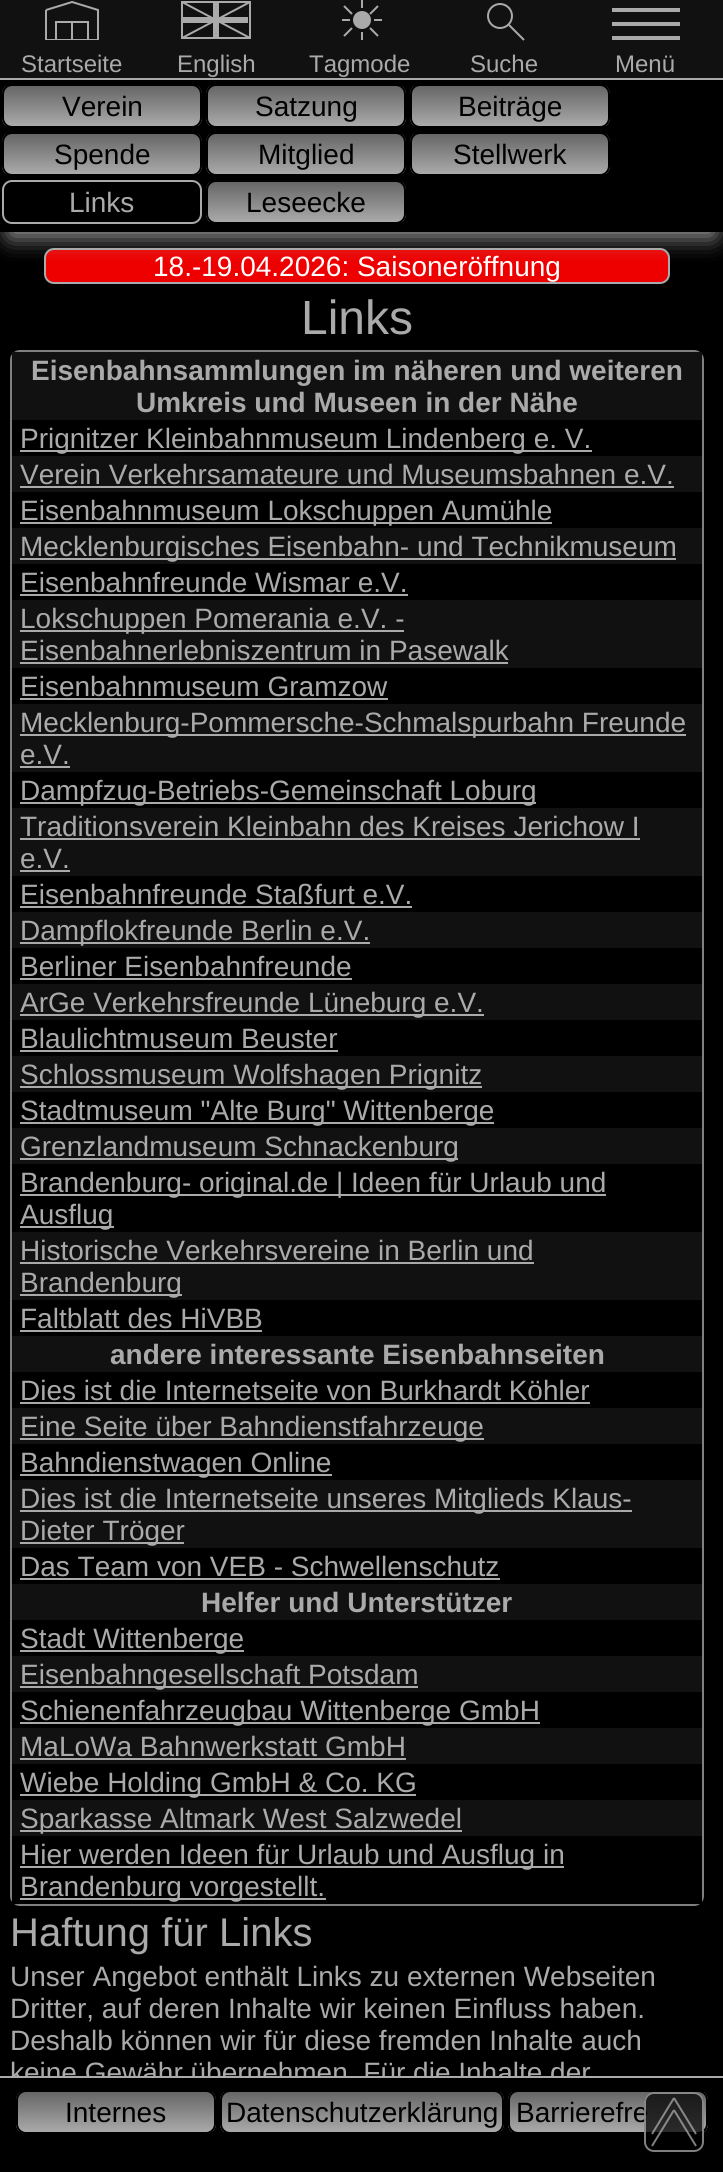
import math
import cairo


def round_path(ctx, x, y, w, h, r):
	ctx.new_sub_path()
	for i, (u, v) in enumerate([(x + w - r, y + h - r), (x + r, y + h - r), (x + r, y + r), (x + w - r, y + r)]):
		ctx.arc(u, v, r, i * math.pi / 2, (i + 1) * math.pi / 2)
	ctx.close_path()

def blur_box(ctx, x, y, w, h, r, blur, alpha):
	ctx.push_group_with_content(cairo.CONTENT_ALPHA)
	ctx.set_operator(cairo.OPERATOR_SOURCE)
	for i in range(15, -16, -2):
		e = blur * i / 6
		if min(w, h) + 2 * e > 0:
			ctx.set_source_rgba(0, 0, 0, alpha * math.erfc((i - 1) / 8.5) / 2)
			round_path(ctx, x - e, y - e, w + 2 * e, h + 2 * e, max(0, min(r + e + blur * .6, min(w, h) / 2 + e)))
			ctx.fill()
	ctx.mask(ctx.pop_group())

def paste(ctx, path, x, y, w, h):
	ctx.save()
	ctx.set_source_surface(cairo.ImageSurface.create_from_png(path), x, y)
	ctx.rectangle(x, y, w, h)
	ctx.fill()
	ctx.restore()

def draw(ctx):
	ctx.set_source_rgb(0, 0, 0)
	ctx.paint()
	ctx.set_source_rgb(0.933, 0, 0)
	round_path(ctx, 45, 249, 624, 34, 9)
	ctx.fill_preserve()
	ctx.set_source_rgb(0.667, 0.667, 0.667)
	ctx.stroke()
	ctx.save()
	ctx.rectangle(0, 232, 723, 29)
	ctx.clip()
	ctx.set_source_rgb(0.667, 0.667, 0.667)
	blur_box(ctx, 10, 104, 704, 132, 0, 12, 1)
	ctx.restore()
	ctx.set_source_rgb(0.067, 0.067, 0.067)
	ctx.rectangle(0, 0, 723, 78)
	ctx.fill()
	ctx.set_source_rgb(0.667, 0.667, 0.667)
	ctx.rectangle(0, 78, 723, 2)
	ctx.fill()
	ctx.save()
	ctx.rectangle(42, 0, 60, 40)
	ctx.clip()
	ctx.new_path()
	ctx.move_to(46, 10)
	ctx.line_to(72, 2)
	ctx.line_to(98, 10)
	ctx.line_to(98, 40)
	ctx.line_to(46, 40)
	ctx.line_to(46, 10)
	ctx.stroke()
	ctx.rectangle(56, 22, 32, 18)
	ctx.stroke()
	ctx.restore()
	ctx.rectangle(71, 22, 2, 18)
	ctx.fill()
	ctx.select_font_face('Liberation Sans')
	ctx.set_font_size(24)
	ctx.move_to(21, 72)
	ctx.show_text('Startseite')
	ctx.rectangle(182, 2, 68, 36)
	ctx.stroke()
	ctx.rectangle(182, 17, 66, 6)
	ctx.fill()
	ctx.rectangle(213, 2, 6, 36)
	ctx.fill()
	ctx.new_path()
	ctx.move_to(182, 2)
	ctx.line_to(250, 38)
	ctx.stroke()
	ctx.new_path()
	ctx.move_to(182, 38)
	ctx.line_to(250, 2)
	ctx.stroke()
	ctx.move_to(177, 72)
	ctx.show_text('English')
	paste(ctx, 'media/1.png', 342, 0, 40, 40)
	ctx.move_to(309, 72)
	ctx.show_text('Tagmode')
	ctx.new_path()
	ctx.arc(500, 16, 12, 0, 2 * math.pi)
	ctx.stroke()
	ctx.new_path()
	ctx.move_to(508, 24)
	ctx.line_to(524, 40)
	ctx.stroke()
	ctx.move_to(470, 72)
	ctx.show_text('Suche')
	ctx.rectangle(612, 8, 68, 4)
	ctx.rectangle(612, 22, 68, 4)
	ctx.rectangle(612, 36, 68, 4)
	ctx.fill()
	ctx.move_to(615, 72)
	ctx.show_text('Menü')
	ctx.save()
	round_path(ctx, 2, 84, 200, 44, 10)
	ctx.clip()
	gradient = cairo.LinearGradient(102, 86, 102, 126)
	gradient.add_color_stop_rgba(0, 0.4, 0.4, 0.4, 1)
	gradient.add_color_stop_rgba(1, 0.667, 0.667, 0.667, 1)
	ctx.set_source(gradient)
	ctx.rectangle(2, 86, 200, 40)
	ctx.fill()
	ctx.restore()
	round_path(ctx, 3, 85, 198, 42, 9)
	ctx.set_source_rgb(0, 0, 0)
	ctx.stroke()
	ctx.set_font_size(28)
	ctx.move_to(62, 116)
	ctx.show_text('Verein')
	ctx.save()
	round_path(ctx, 206, 84, 200, 44, 10)
	ctx.clip()
	gradient = cairo.LinearGradient(306, 86, 306, 126)
	gradient.add_color_stop_rgba(0, 0.4, 0.4, 0.4, 1)
	gradient.add_color_stop_rgba(1, 0.667, 0.667, 0.667, 1)
	ctx.set_source(gradient)
	ctx.rectangle(206, 86, 200, 40)
	ctx.fill()
	ctx.restore()
	round_path(ctx, 207, 85, 198, 42, 9)
	ctx.stroke()
	ctx.move_to(255, 116)
	ctx.show_text('Satzung')
	ctx.save()
	round_path(ctx, 410, 84, 200, 44, 10)
	ctx.clip()
	gradient = cairo.LinearGradient(510, 86, 510, 126)
	gradient.add_color_stop_rgba(0, 0.4, 0.4, 0.4, 1)
	gradient.add_color_stop_rgba(1, 0.667, 0.667, 0.667, 1)
	ctx.set_source(gradient)
	ctx.rectangle(410, 86, 200, 40)
	ctx.fill()
	ctx.restore()
	round_path(ctx, 411, 85, 198, 42, 9)
	ctx.stroke()
	ctx.move_to(458, 116)
	ctx.show_text('Beiträge')
	ctx.save()
	round_path(ctx, 2, 132, 200, 44, 10)
	ctx.clip()
	gradient = cairo.LinearGradient(102, 134, 102, 174)
	gradient.add_color_stop_rgba(0, 0.4, 0.4, 0.4, 1)
	gradient.add_color_stop_rgba(1, 0.667, 0.667, 0.667, 1)
	ctx.set_source(gradient)
	ctx.rectangle(2, 134, 200, 40)
	ctx.fill()
	ctx.restore()
	round_path(ctx, 3, 133, 198, 42, 9)
	ctx.stroke()
	ctx.move_to(54, 164)
	ctx.show_text('Spende')
	ctx.save()
	round_path(ctx, 206, 132, 200, 44, 10)
	ctx.clip()
	gradient = cairo.LinearGradient(306, 134, 306, 174)
	gradient.add_color_stop_rgba(0, 0.4, 0.4, 0.4, 1)
	gradient.add_color_stop_rgba(1, 0.667, 0.667, 0.667, 1)
	ctx.set_source(gradient)
	ctx.rectangle(206, 134, 200, 40)
	ctx.fill()
	ctx.restore()
	round_path(ctx, 207, 133, 198, 42, 9)
	ctx.stroke()
	ctx.move_to(258, 164)
	ctx.show_text('Mitglied')
	ctx.save()
	round_path(ctx, 410, 132, 200, 44, 10)
	ctx.clip()
	gradient = cairo.LinearGradient(510, 134, 510, 174)
	gradient.add_color_stop_rgba(0, 0.4, 0.4, 0.4, 1)
	gradient.add_color_stop_rgba(1, 0.667, 0.667, 0.667, 1)
	ctx.set_source(gradient)
	ctx.rectangle(410, 134, 200, 40)
	ctx.fill()
	ctx.restore()
	round_path(ctx, 411, 133, 198, 42, 9)
	ctx.stroke()
	ctx.move_to(453, 164)
	ctx.show_text('Stellwerk')
	round_path(ctx, 3, 181, 198, 42, 9)
	ctx.set_source_rgb(0.667, 0.667, 0.667)
	ctx.stroke()
	ctx.move_to(69, 212)
	ctx.show_text('Links')
	ctx.save()
	round_path(ctx, 206, 180, 200, 44, 10)
	ctx.clip()
	gradient = cairo.LinearGradient(306, 182, 306, 222)
	gradient.add_color_stop_rgba(0, 0.4, 0.4, 0.4, 1)
	gradient.add_color_stop_rgba(1, 0.667, 0.667, 0.667, 1)
	ctx.set_source(gradient)
	ctx.rectangle(206, 182, 200, 40)
	ctx.fill()
	ctx.restore()
	round_path(ctx, 207, 181, 198, 42, 9)
	ctx.set_source_rgb(0, 0, 0)
	ctx.stroke()
	ctx.move_to(246, 212)
	ctx.show_text('Leseecke')
	ctx.set_source_rgb(1, 1, 1)
	ctx.move_to(153, 276)
	ctx.show_text('18.-19.04.2026: Saisoneröffnung')
	ctx.set_font_size(48)
	ctx.set_source_rgb(0.667, 0.667, 0.667)
	ctx.move_to(301, 334)
	ctx.show_text('Links')
	round_path(ctx, 11, 351, 692, 1554, 9)
	ctx.set_source_rgb(0.502, 0.502, 0.502)
	ctx.stroke()
	ctx.set_source_rgb(0.067, 0.067, 0.067)
	ctx.rectangle(12, 352, 690, 68)
	ctx.fill()
	ctx.select_font_face('Liberation Sans', cairo.FONT_SLANT_NORMAL, cairo.FONT_WEIGHT_BOLD)
	ctx.set_font_size(28)
	ctx.set_source_rgb(0.667, 0.667, 0.667)
	ctx.move_to(31, 380)
	ctx.show_text('Eisenbahnsammlungen im näheren und weiteren')
	ctx.move_to(136, 412)
	ctx.show_text('Umkreis und Museen in der Nähe')
	ctx.rectangle(20, 450, 572, 2)
	ctx.fill()
	ctx.select_font_face('Liberation Sans')
	ctx.move_to(20, 448)
	ctx.show_text('Prignitzer Kleinbahnmuseum Lindenberg e. V.')
	ctx.set_source_rgb(0.067, 0.067, 0.067)
	ctx.rectangle(12, 456, 690, 36)
	ctx.fill()
	ctx.set_source_rgb(0.667, 0.667, 0.667)
	ctx.move_to(20, 484)
	ctx.show_text('Verein Verkehrsamateure und Museumsbahnen e.V.')
	ctx.rectangle(20, 486, 654, 2)
	ctx.fill()
	ctx.rectangle(20, 522, 532, 2)
	ctx.fill()
	ctx.move_to(20, 520)
	ctx.show_text('Eisenbahnmuseum Lokschuppen Aumühle')
	ctx.set_source_rgb(0.067, 0.067, 0.067)
	ctx.rectangle(12, 528, 690, 36)
	ctx.fill()
	ctx.set_source_rgb(0.667, 0.667, 0.667)
	ctx.rectangle(20, 558, 656, 2)
	ctx.fill()
	ctx.move_to(20, 556)
	ctx.show_text('Mecklenburgisches Eisenbahn- und Technikmuseum')
	ctx.move_to(20, 592)
	ctx.show_text('Eisenbahnfreunde Wismar e.V.')
	ctx.rectangle(20, 594, 388, 2)
	ctx.fill()
	ctx.set_source_rgb(0.067, 0.067, 0.067)
	ctx.rectangle(12, 600, 690, 68)
	ctx.fill()
	ctx.set_source_rgb(0.667, 0.667, 0.667)
	ctx.rectangle(20, 630, 384, 2)
	ctx.fill()
	ctx.move_to(20, 628)
	ctx.show_text('Lokschuppen Pomerania e.V. -')
	ctx.move_to(20, 660)
	ctx.show_text('Eisenbahnerlebniszentrum in Pasewalk')
	ctx.rectangle(20, 662, 488, 2)
	ctx.fill()
	ctx.move_to(20, 696)
	ctx.show_text('Eisenbahnmuseum Gramzow')
	ctx.rectangle(20, 698, 368, 2)
	ctx.fill()
	ctx.set_source_rgb(0.067, 0.067, 0.067)
	ctx.rectangle(12, 704, 690, 68)
	ctx.fill()
	ctx.set_source_rgb(0.667, 0.667, 0.667)
	ctx.rectangle(20, 734, 666, 2)
	ctx.fill()
	ctx.move_to(20, 732)
	ctx.show_text('Mecklenburg-Pommersche-Schmalspurbahn Freunde')
	ctx.move_to(20, 764)
	ctx.show_text('e.V.')
	ctx.rectangle(20, 766, 50, 2)
	ctx.fill()
	ctx.rectangle(20, 802, 516, 2)
	ctx.fill()
	ctx.move_to(20, 800)
	ctx.show_text('Dampfzug-Betriebs-Gemeinschaft Loburg')
	ctx.set_source_rgb(0.067, 0.067, 0.067)
	ctx.rectangle(12, 808, 690, 68)
	ctx.fill()
	ctx.set_source_rgb(0.667, 0.667, 0.667)
	ctx.move_to(20, 836)
	ctx.show_text('Traditionsverein Kleinbahn des Kreises Jerichow I')
	ctx.rectangle(20, 838, 620, 2)
	ctx.fill()
	ctx.move_to(20, 868)
	ctx.show_text('e.V.')
	ctx.rectangle(20, 870, 50, 2)
	ctx.fill()
	ctx.move_to(20, 904)
	ctx.show_text('Eisenbahnfreunde Staßfurt e.V.')
	ctx.rectangle(20, 906, 392, 2)
	ctx.fill()
	ctx.set_source_rgb(0.067, 0.067, 0.067)
	ctx.rectangle(12, 912, 690, 36)
	ctx.fill()
	ctx.set_source_rgb(0.667, 0.667, 0.667)
	ctx.rectangle(20, 942, 350, 2)
	ctx.fill()
	ctx.move_to(20, 940)
	ctx.show_text('Dampflokfreunde Berlin e.V.')
	ctx.move_to(20, 976)
	ctx.show_text('Berliner Eisenbahnfreunde')
	ctx.rectangle(20, 978, 332, 2)
	ctx.fill()
	ctx.set_source_rgb(0.067, 0.067, 0.067)
	ctx.rectangle(12, 984, 690, 36)
	ctx.fill()
	ctx.set_source_rgb(0.667, 0.667, 0.667)
	ctx.rectangle(20, 1014, 464, 2)
	ctx.fill()
	ctx.move_to(20, 1012)
	ctx.show_text('ArGe Verkehrsfreunde Lüneburg e.V.')
	ctx.move_to(20, 1048)
	ctx.show_text('Blaulichtmuseum Beuster')
	ctx.rectangle(20, 1050, 318, 2)
	ctx.fill()
	ctx.set_source_rgb(0.067, 0.067, 0.067)
	ctx.rectangle(12, 1056, 690, 36)
	ctx.fill()
	ctx.set_source_rgb(0.667, 0.667, 0.667)
	ctx.rectangle(20, 1086, 462, 2)
	ctx.fill()
	ctx.move_to(20, 1084)
	ctx.show_text('Schlossmuseum Wolfshagen Prignitz')
	ctx.rectangle(20, 1122, 474, 2)
	ctx.fill()
	ctx.move_to(20, 1120)
	ctx.show_text('Stadtmuseum "Alte Burg" Wittenberge')
	ctx.set_source_rgb(0.067, 0.067, 0.067)
	ctx.rectangle(12, 1128, 690, 36)
	ctx.fill()
	ctx.set_source_rgb(0.667, 0.667, 0.667)
	ctx.rectangle(20, 1158, 438, 2)
	ctx.fill()
	ctx.move_to(20, 1156)
	ctx.show_text('Grenzlandmuseum Schnackenburg')
	ctx.rectangle(20, 1194, 586, 2)
	ctx.fill()
	ctx.move_to(20, 1192)
	ctx.show_text('Brandenburg- original.de | Ideen für Urlaub und')
	ctx.rectangle(20, 1226, 94, 2)
	ctx.fill()
	ctx.move_to(20, 1224)
	ctx.show_text('Ausflug')
	ctx.set_source_rgb(0.067, 0.067, 0.067)
	ctx.rectangle(12, 1232, 690, 68)
	ctx.fill()
	ctx.set_source_rgb(0.667, 0.667, 0.667)
	ctx.move_to(20, 1260)
	ctx.show_text('Historische Verkehrsvereine in Berlin und')
	ctx.rectangle(20, 1262, 514, 2)
	ctx.fill()
	ctx.rectangle(20, 1294, 162, 2)
	ctx.fill()
	ctx.move_to(20, 1292)
	ctx.show_text('Brandenburg')
	ctx.move_to(20, 1328)
	ctx.show_text('Faltblatt des HiVBB')
	ctx.rectangle(20, 1330, 242, 2)
	ctx.fill()
	ctx.set_source_rgb(0.067, 0.067, 0.067)
	ctx.rectangle(12, 1336, 690, 36)
	ctx.fill()
	ctx.select_font_face('Liberation Sans', cairo.FONT_SLANT_NORMAL, cairo.FONT_WEIGHT_BOLD)
	ctx.set_source_rgb(0.667, 0.667, 0.667)
	ctx.move_to(110, 1364)
	ctx.show_text('andere interessante Eisenbahnseiten')
	ctx.select_font_face('Liberation Sans')
	ctx.move_to(20, 1400)
	ctx.show_text('Dies ist die Internetseite von Burkhardt Köhler')
	ctx.rectangle(20, 1402, 570, 2)
	ctx.fill()
	ctx.set_source_rgb(0.067, 0.067, 0.067)
	ctx.rectangle(12, 1408, 690, 36)
	ctx.fill()
	ctx.set_source_rgb(0.667, 0.667, 0.667)
	ctx.rectangle(20, 1438, 464, 2)
	ctx.fill()
	ctx.move_to(20, 1436)
	ctx.show_text('Eine Seite über Bahndienstfahrzeuge')
	ctx.rectangle(20, 1474, 312, 2)
	ctx.fill()
	ctx.move_to(20, 1472)
	ctx.show_text('Bahndienstwagen Online')
	ctx.set_source_rgb(0.067, 0.067, 0.067)
	ctx.rectangle(12, 1480, 690, 68)
	ctx.fill()
	ctx.set_source_rgb(0.667, 0.667, 0.667)
	ctx.rectangle(20, 1510, 612, 2)
	ctx.fill()
	ctx.move_to(20, 1508)
	ctx.show_text('Dies ist die Internetseite unseres Mitglieds Klaus-')
	ctx.rectangle(20, 1542, 164, 2)
	ctx.fill()
	ctx.move_to(20, 1540)
	ctx.show_text('Dieter Tröger')
	ctx.move_to(20, 1576)
	ctx.show_text('Das Team von VEB - Schwellenschutz')
	ctx.rectangle(20, 1578, 480, 2)
	ctx.fill()
	ctx.set_source_rgb(0.067, 0.067, 0.067)
	ctx.rectangle(12, 1584, 690, 36)
	ctx.fill()
	ctx.select_font_face('Liberation Sans', cairo.FONT_SLANT_NORMAL, cairo.FONT_WEIGHT_BOLD)
	ctx.set_source_rgb(0.667, 0.667, 0.667)
	ctx.move_to(201, 1612)
	ctx.show_text('Helfer und Unterstützer')
	ctx.rectangle(20, 1650, 224, 2)
	ctx.fill()
	ctx.select_font_face('Liberation Sans')
	ctx.move_to(20, 1648)
	ctx.show_text('Stadt Wittenberge')
	ctx.set_source_rgb(0.067, 0.067, 0.067)
	ctx.rectangle(12, 1656, 690, 36)
	ctx.fill()
	ctx.set_source_rgb(0.667, 0.667, 0.667)
	ctx.rectangle(20, 1686, 398, 2)
	ctx.fill()
	ctx.move_to(20, 1684)
	ctx.show_text('Eisenbahngesellschaft Potsdam')
	ctx.rectangle(20, 1722, 520, 2)
	ctx.fill()
	ctx.move_to(20, 1720)
	ctx.show_text('Schienenfahrzeugbau Wittenberge GmbH')
	ctx.set_source_rgb(0.067, 0.067, 0.067)
	ctx.rectangle(12, 1728, 690, 36)
	ctx.fill()
	ctx.set_source_rgb(0.667, 0.667, 0.667)
	ctx.move_to(20, 1756)
	ctx.show_text('MaLoWa Bahnwerkstatt GmbH')
	ctx.rectangle(20, 1758, 386, 2)
	ctx.fill()
	ctx.rectangle(20, 1794, 396, 2)
	ctx.fill()
	ctx.move_to(20, 1792)
	ctx.show_text('Wiebe Holding GmbH & Co. KG')
	ctx.set_source_rgb(0.067, 0.067, 0.067)
	ctx.rectangle(12, 1800, 690, 36)
	ctx.fill()
	ctx.set_source_rgb(0.667, 0.667, 0.667)
	ctx.rectangle(20, 1830, 442, 2)
	ctx.fill()
	ctx.move_to(20, 1828)
	ctx.show_text('Sparkasse Altmark West Salzwedel')
	ctx.set_source_rgb(0, 0, 0)
	ctx.rectangle(12, 1896, 690, 8)
	ctx.fill()
	ctx.set_source_rgb(0.667, 0.667, 0.667)
	ctx.rectangle(20, 1866, 544, 2)
	ctx.fill()
	ctx.move_to(20, 1864)
	ctx.show_text('Hier werden Ideen für Urlaub und Ausflug in')
	ctx.rectangle(20, 1898, 306, 2)
	ctx.fill()
	ctx.move_to(20, 1896)
	ctx.show_text('Brandenburg vorgestellt.')
	ctx.set_font_size(40)
	ctx.move_to(10, 1946)
	ctx.show_text('Haftung für Links')
	ctx.set_font_size(28)
	for x, y, s in [
		(10, 1986, 'Unser Angebot enthält Links zu externen Webseiten'),
		(10, 2018, 'Dritter, auf deren Inhalte wir keinen Einfluss haben.'),
		(10, 2050, 'Deshalb können wir für diese fremden Inhalte auch'),
		(10, 2082, 'keine Gewähr übernehmen. Für die Inhalte der'),
	]:
		ctx.move_to(x, y)
		ctx.show_text(s)
	ctx.set_source_rgb(0, 0, 0)
	ctx.rectangle(11, 2078, 575, 5)
	ctx.fill()
	ctx.set_source_rgb(0.667, 0.667, 0.667)
	ctx.rectangle(0, 2076, 723, 2)
	ctx.fill()
	ctx.save()
	round_path(ctx, 16, 2090, 200, 44, 10)
	ctx.clip()
	gradient = cairo.LinearGradient(116, 2092, 116, 2132)
	gradient.add_color_stop_rgba(0, 0.4, 0.4, 0.4, 1)
	gradient.add_color_stop_rgba(1, 0.667, 0.667, 0.667, 1)
	ctx.set_source(gradient)
	ctx.rectangle(16, 2092, 200, 40)
	ctx.fill()
	ctx.restore()
	round_path(ctx, 17, 2091, 198, 42, 9)
	ctx.set_source_rgb(0, 0, 0)
	ctx.stroke()
	ctx.move_to(65, 2122)
	ctx.show_text('Internes')
	ctx.save()
	round_path(ctx, 220, 2090, 284, 44, 10)
	ctx.clip()
	gradient = cairo.LinearGradient(362, 2092, 362, 2132)
	gradient.add_color_stop_rgba(0, 0.4, 0.4, 0.4, 1)
	gradient.add_color_stop_rgba(1, 0.667, 0.667, 0.667, 1)
	ctx.set_source(gradient)
	ctx.rectangle(220, 2092, 284, 40)
	ctx.fill()
	ctx.restore()
	round_path(ctx, 221, 2091, 282, 42, 9)
	ctx.stroke()
	ctx.move_to(226, 2122)
	ctx.show_text('Datenschutzerklärung')
	ctx.save()
	round_path(ctx, 508, 2090, 200, 44, 10)
	ctx.clip()
	gradient = cairo.LinearGradient(608, 2092, 608, 2132)
	gradient.add_color_stop_rgba(0, 0.4, 0.4, 0.4, 1)
	gradient.add_color_stop_rgba(1, 0.667, 0.667, 0.667, 1)
	ctx.set_source(gradient)
	ctx.rectangle(508, 2092, 200, 40)
	ctx.fill()
	ctx.restore()
	round_path(ctx, 509, 2091, 198, 42, 9)
	ctx.stroke()
	ctx.move_to(516, 2122)
	ctx.show_text('Barrierefre')
	ctx.set_source_rgba(0, 0, 0, 0.75)
	round_path(ctx, 644, 2092, 60, 60, 10)
	ctx.fill()
	round_path(ctx, 645, 2093, 58, 58, 9)
	ctx.set_source_rgba(0.667, 0.667, 0.667, 0.75)
	ctx.stroke()
	ctx.new_path()
	ctx.move_to(652, 2146)
	ctx.line_to(674, 2110)
	ctx.move_to(674, 2110)
	ctx.line_to(696, 2146)
	ctx.stroke()
	ctx.new_path()
	ctx.move_to(652, 2134)
	ctx.line_to(674, 2098)
	ctx.move_to(674, 2098)
	ctx.line_to(696, 2134)
	ctx.stroke()


surface = cairo.ImageSurface(cairo.FORMAT_RGB24, 723, 2172)
ctx = cairo.Context(surface)
options = cairo.FontOptions()
options.set_hint_metrics(cairo.HINT_METRICS_OFF)
options.set_hint_style(cairo.HINT_STYLE_NONE)
ctx.set_font_options(options)
ctx.set_miter_limit(4)
draw(ctx)
surface.write_to_png('image.png')
